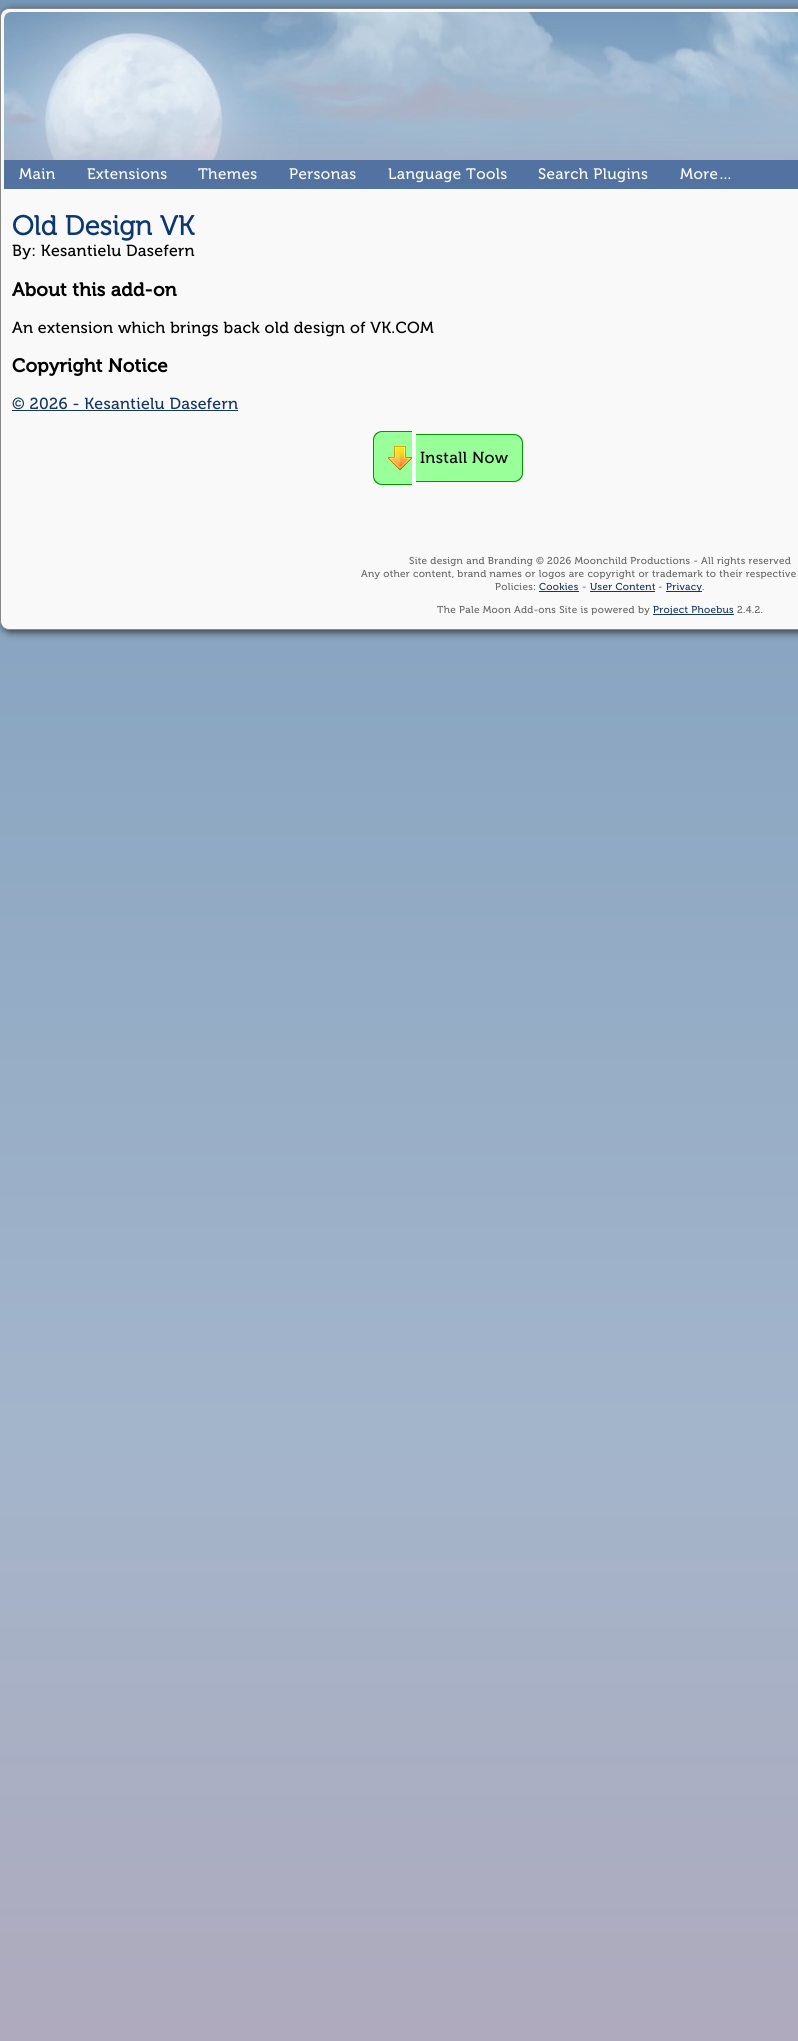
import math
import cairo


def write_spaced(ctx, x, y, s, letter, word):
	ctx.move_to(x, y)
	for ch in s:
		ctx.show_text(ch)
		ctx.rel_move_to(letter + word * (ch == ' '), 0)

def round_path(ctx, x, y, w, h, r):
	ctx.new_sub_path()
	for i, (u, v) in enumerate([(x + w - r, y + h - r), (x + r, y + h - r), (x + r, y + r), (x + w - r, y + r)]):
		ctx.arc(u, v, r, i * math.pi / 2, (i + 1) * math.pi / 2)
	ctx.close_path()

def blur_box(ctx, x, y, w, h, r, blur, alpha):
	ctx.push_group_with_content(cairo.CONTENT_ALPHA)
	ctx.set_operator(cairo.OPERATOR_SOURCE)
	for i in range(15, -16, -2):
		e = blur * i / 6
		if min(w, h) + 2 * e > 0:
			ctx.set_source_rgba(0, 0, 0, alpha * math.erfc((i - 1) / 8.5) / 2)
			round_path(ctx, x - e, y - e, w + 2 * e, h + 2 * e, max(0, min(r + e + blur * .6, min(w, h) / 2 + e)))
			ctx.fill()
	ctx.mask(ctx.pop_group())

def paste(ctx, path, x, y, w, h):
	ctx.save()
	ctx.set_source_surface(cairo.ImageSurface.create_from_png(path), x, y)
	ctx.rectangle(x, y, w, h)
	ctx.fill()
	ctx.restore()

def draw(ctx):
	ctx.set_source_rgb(1, 1, 1)
	ctx.paint()
	gradient = cairo.LinearGradient(399, 0, 399, 2041)
	gradient.add_color_stop_rgba(0, 0.459, 0.596, 0.725, 1)
	gradient.add_color_stop_rgba(0.7, 0.639, 0.71, 0.796, 1)
	gradient.add_color_stop_rgba(1, 0.686, 0.667, 0.741, 1)
	ctx.set_source(gradient)
	ctx.rectangle(0, 0, 798, 2041)
	ctx.fill()
	ctx.set_source_rgb(0.2, 0.2, 0.2)
	blur_box(ctx, 2, 10, 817, 622, 9, 4, 1)
	ctx.set_source_rgb(0.976, 0.976, 0.976)
	round_path(ctx, 0.5, 8.5, 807, 621, 8.5)
	ctx.fill_preserve()
	ctx.set_source_rgb(0.533, 0.533, 0.533)
	ctx.set_line_width(1)
	ctx.stroke()
	paste(ctx, 'media/1.png', 4, 12, 794, 148)
	ctx.set_source_rgb(0.322, 0.447, 0.631)
	ctx.rectangle(4, 160, 794, 29)
	ctx.fill()
	ctx.select_font_face('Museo')
	ctx.set_font_size(15.25)
	ctx.set_source_rgb(0.98, 0.984, 0.988)
	for x, y, s in [
		(19, 179, 'Main'),
		(87, 179, 'Extensions'),
		(198, 179, 'Themes'),
		(289, 179, 'Personas'),
		(388, 179, 'Language Tools'),
		(538, 179, 'Search Plugins'),
		(680, 179, 'More…'),
	]:
		write_spaced(ctx, x, y, s, 0.4, 0)
	ctx.select_font_face('Museo', cairo.FONT_SLANT_NORMAL, cairo.FONT_WEIGHT_BOLD)
	ctx.set_font_size(27.25)
	ctx.set_source_rgb(0.043, 0.216, 0.459)
	write_spaced(ctx, 12, 235, 'Old Design VK', 0.3, 0)
	ctx.select_font_face('Museo')
	ctx.set_font_size(16)
	ctx.set_source_rgb(0, 0, 0)
	write_spaced(ctx, 12, 256, 'By: Kesantielu Dasefern', 0.3, 0)
	ctx.select_font_face('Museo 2', cairo.FONT_SLANT_NORMAL, cairo.FONT_WEIGHT_BOLD)
	ctx.set_font_size(18.75)
	write_spaced(ctx, 12, 296, 'About this add-on', 0.3, 0)
	ctx.select_font_face('Museo')
	ctx.set_font_size(16)
	write_spaced(ctx, 12, 333, 'An extension which brings back old design of VK.COM', 0.3, 0)
	ctx.select_font_face('Museo 2', cairo.FONT_SLANT_NORMAL, cairo.FONT_WEIGHT_BOLD)
	ctx.set_font_size(18.75)
	write_spaced(ctx, 12, 372, 'Copyright Notice', 0.3, 0)
	ctx.select_font_face('Museo')
	ctx.set_font_size(16)
	ctx.set_source_rgb(0.086, 0.212, 0.396)
	write_spaced(ctx, 12, 409, '© 2026 - Kesantielu Dasefern', 0.3, 0)
	ctx.rectangle(12, 410, 226, 1)
	ctx.fill()
	ctx.set_source_rgb(0.6, 1, 0.6)
	ctx.new_path()
	ctx.move_to(382, 431)
	ctx.line_to(412, 431)
	ctx.line_to(412, 485)
	ctx.line_to(382, 485)
	ctx.curve_to(377, 485, 373, 481, 373, 476)
	ctx.line_to(373, 440)
	ctx.curve_to(373, 435, 377, 431, 382, 431)
	ctx.close_path()
	ctx.fill()
	ctx.set_source_rgb(0, 0.6, 0)
	ctx.set_fill_rule(cairo.FILL_RULE_EVEN_ODD)
	ctx.new_path()
	ctx.move_to(382, 431)
	ctx.line_to(412, 431)
	ctx.line_to(412, 485)
	ctx.line_to(382, 485)
	ctx.curve_to(377, 485, 373, 481, 373, 476)
	ctx.line_to(373, 440)
	ctx.curve_to(373, 435, 377, 431, 382, 431)
	ctx.close_path()
	ctx.move_to(382, 432)
	ctx.line_to(412, 432)
	ctx.line_to(412, 484)
	ctx.line_to(382, 484)
	ctx.curve_to(378, 484, 374, 480, 374, 476)
	ctx.line_to(374, 440)
	ctx.curve_to(374, 436, 378, 432, 382, 432)
	ctx.close_path()
	ctx.fill()
	paste(ctx, 'media/2.png', 388, 446, 24, 24)
	ctx.set_source_rgb(0.6, 1, 0.6)
	ctx.new_path()
	ctx.move_to(420, 434)
	ctx.line_to(514, 434)
	ctx.curve_to(519, 434, 523, 438, 523, 443)
	ctx.line_to(523, 473)
	ctx.curve_to(523, 478, 519, 482, 514, 482)
	ctx.line_to(420, 482)
	ctx.close_path()
	ctx.fill()
	ctx.set_source_rgb(0, 0.6, 0)
	ctx.new_path()
	ctx.move_to(420, 434)
	ctx.line_to(514, 434)
	ctx.curve_to(519, 434, 523, 438, 523, 443)
	ctx.line_to(523, 473)
	ctx.curve_to(523, 478, 519, 482, 514, 482)
	ctx.line_to(420, 482)
	ctx.close_path()
	ctx.move_to(420, 435)
	ctx.line_to(514, 435)
	ctx.curve_to(518, 435, 522, 439, 522, 443)
	ctx.line_to(522, 473)
	ctx.curve_to(522, 477, 518, 481, 514, 481)
	ctx.line_to(420, 481)
	ctx.close_path()
	ctx.fill()
	ctx.set_source_rgb(0, 0, 0)
	write_spaced(ctx, 420, 463, 'Install Now', 0.3, 0)
	ctx.set_source_rgb(0.6, 1, 0.6)
	ctx.rectangle(416, 434, 4, 48)
	ctx.fill()
	ctx.set_source_rgb(0, 0.6, 0)
	ctx.rectangle(416, 434, 4, 1)
	ctx.rectangle(416, 481, 4, 1)
	ctx.fill()
	ctx.set_font_size(10)
	ctx.set_source_rgb(0.4, 0.4, 0.4)
	for x, y, s in [
		(409, 564, 'Site design and Branding © 2026 Moonchild Productions - All rights reserved'),
		(361, 577, 'Any other content, brand names or logos are copyright or trademark to their respective'),
		(495, 590, 'Policies:'),
	]:
		write_spaced(ctx, x, y, s, 0.3, 0)
	ctx.set_source_rgb(0.086, 0.212, 0.396)
	write_spaced(ctx, 539, 590, 'Cookies', 0.3, 0)
	ctx.rectangle(539, 591, 40, 1)
	ctx.fill()
	ctx.set_source_rgb(0.4, 0.4, 0.4)
	write_spaced(ctx, 582, 590, '-', 0.3, 0)
	ctx.set_source_rgb(0.086, 0.212, 0.396)
	write_spaced(ctx, 590, 590, 'User Content', 0.3, 0)
	ctx.rectangle(590, 591, 65, 1)
	ctx.fill()
	ctx.set_source_rgb(0.4, 0.4, 0.4)
	write_spaced(ctx, 658, 590, '-', 0.3, 0)
	ctx.set_source_rgb(0.086, 0.212, 0.396)
	ctx.rectangle(666, 591, 36, 1)
	ctx.fill()
	write_spaced(ctx, 666, 590, 'Privacy', 0.3, 0)
	ctx.set_source_rgb(0.4, 0.4, 0.4)
	write_spaced(ctx, 702, 590, '.', 0.3, 0)
	write_spaced(ctx, 437, 613, 'The Pale Moon Add-ons Site is powered by', 0.3, 0)
	ctx.set_source_rgb(0.086, 0.212, 0.396)
	ctx.rectangle(653, 614, 81, 1)
	ctx.fill()
	write_spaced(ctx, 653, 613, 'Project Phoebus', 0.3, 0)
	ctx.set_source_rgb(0.4, 0.4, 0.4)
	write_spaced(ctx, 737, 613, '2.4.2.', 0.3, 0)


surface = cairo.ImageSurface(cairo.FORMAT_RGB24, 798, 2041)
ctx = cairo.Context(surface)
options = cairo.FontOptions()
options.set_hint_metrics(cairo.HINT_METRICS_OFF)
options.set_hint_style(cairo.HINT_STYLE_NONE)
ctx.set_font_options(options)
ctx.set_miter_limit(4)
draw(ctx)
surface.write_to_png('image.png')
